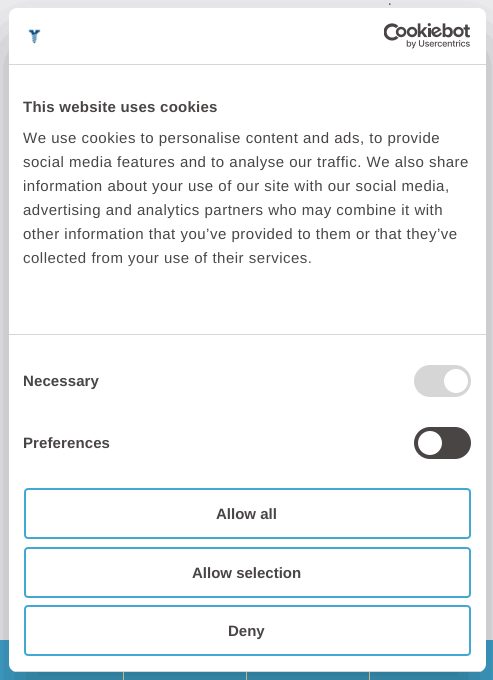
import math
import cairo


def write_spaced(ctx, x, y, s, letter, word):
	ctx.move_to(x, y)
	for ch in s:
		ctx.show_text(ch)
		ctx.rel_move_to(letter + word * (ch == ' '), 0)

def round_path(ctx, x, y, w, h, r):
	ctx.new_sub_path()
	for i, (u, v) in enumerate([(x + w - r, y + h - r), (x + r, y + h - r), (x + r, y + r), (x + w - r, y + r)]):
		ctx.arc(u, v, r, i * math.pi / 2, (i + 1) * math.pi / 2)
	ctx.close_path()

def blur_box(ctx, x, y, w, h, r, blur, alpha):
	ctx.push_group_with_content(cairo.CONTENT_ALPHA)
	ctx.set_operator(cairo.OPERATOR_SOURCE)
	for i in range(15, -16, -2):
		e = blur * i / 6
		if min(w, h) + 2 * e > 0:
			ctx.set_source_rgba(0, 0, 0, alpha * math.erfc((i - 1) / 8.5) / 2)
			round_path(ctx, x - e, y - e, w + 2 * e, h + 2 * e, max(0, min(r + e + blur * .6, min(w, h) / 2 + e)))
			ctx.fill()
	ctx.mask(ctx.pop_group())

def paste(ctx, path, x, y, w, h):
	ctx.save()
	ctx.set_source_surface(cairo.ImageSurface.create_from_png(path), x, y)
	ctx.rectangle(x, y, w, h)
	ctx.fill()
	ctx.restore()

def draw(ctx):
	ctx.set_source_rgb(0.945, 0.945, 0.957)
	ctx.paint()
	ctx.select_font_face('Barlow Semi Condensed')
	ctx.set_font_size(15)
	ctx.set_source_rgb(0.282, 0.271, 0.267)
	ctx.move_to(388, 5)
	ctx.show_text('.')
	ctx.set_source_rgb(0.259, 0.655, 0.82)
	ctx.rectangle(0, 640, 123, 40)
	ctx.rectangle(124, 672, 122, 8)
	ctx.fill()
	ctx.set_source_rgb(1, 0.937, 0.698)
	ctx.rectangle(246, 672, 1, 8)
	ctx.rectangle(123, 672, 1, 8)
	ctx.fill()
	ctx.set_source_rgb(0.259, 0.655, 0.82)
	ctx.rectangle(247, 672, 122, 8)
	ctx.fill()
	ctx.set_source_rgb(1, 0.937, 0.698)
	ctx.rectangle(369, 672, 1, 8)
	ctx.fill()
	ctx.set_source_rgb(0.259, 0.655, 0.82)
	ctx.rectangle(370, 640, 123, 40)
	ctx.fill()
	ctx.set_source_rgb(0, 0, 0)
	blur_box(ctx, 9, 40, 477, 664, 8, 34, 0.3)
	ctx.set_source_rgb(1, 1, 1)
	round_path(ctx, 9, 8, 477, 664, 8)
	ctx.fill()
	ctx.set_source_rgb(0.839, 0.839, 0.839)
	ctx.rectangle(9, 64, 477, 1)
	ctx.fill()
	paste(ctx, 'media/1.png', 28, 29, 13, 15)
	paste(ctx, 'media/2.png', 384, 23, 87, 26)
	ctx.rectangle(9, 334, 477, 1)
	ctx.fill()
	ctx.select_font_face('Liberation Sans', cairo.FONT_SLANT_NORMAL, cairo.FONT_WEIGHT_BOLD)
	ctx.set_source_rgb(0.282, 0.271, 0.267)
	write_spaced(ctx, 23, 112, 'This website uses cookies', 0.25, 0)
	ctx.select_font_face('Liberation Sans')
	for x, y, s in [
		(23, 143, 'We use cookies to personalise content and ads, to provide'),
		(23, 167, 'social media features and to analyse our traffic. We also share'),
		(23, 191, 'information about your use of our site with our social media,'),
		(23, 215, 'advertising and analytics partners who may combine it with'),
		(23, 239, 'other information that you’ve provided to them or that they’ve'),
		(23, 263, 'collected from your use of their services.'),
	]:
		write_spaced(ctx, x, y, s, 0.5, 0)
	gradient = cairo.LinearGradient(241, 334, 241, 259)
	gradient.add_color_stop_rgba(0, 1, 1, 1, 1)
	gradient.add_color_stop_rgba(0.5, 1, 1, 1, 0.8)
	gradient.add_color_stop_rgba(1, 1, 1, 1, 0)
	ctx.set_source(gradient)
	ctx.rectangle(24, 260, 287, 6)
	ctx.fill()
	ctx.select_font_face('Liberation Sans', cairo.FONT_SLANT_NORMAL, cairo.FONT_WEIGHT_BOLD)
	ctx.set_source_rgb(0.282, 0.271, 0.267)
	write_spaced(ctx, 23, 386, 'Necessary', 0.1, 0)
	ctx.set_source_rgb(0.839, 0.839, 0.839)
	round_path(ctx, 414, 365, 57, 32, 16)
	ctx.fill()
	ctx.set_source_rgb(1, 1, 1)
	ctx.arc(456, 381, 12, 0, 2 * math.pi)
	ctx.fill()
	ctx.set_source_rgb(0.282, 0.271, 0.267)
	write_spaced(ctx, 23, 448, 'Preferences', 0.1, 0)
	round_path(ctx, 414, 427, 57, 32, 16)
	ctx.fill()
	ctx.set_source_rgb(1, 1, 1)
	ctx.arc(430, 443, 12, 0, 2 * math.pi)
	ctx.fill()
	ctx.save()
	round_path(ctx, 9, 8, 477, 664, 8)
	ctx.clip()
	ctx.set_source_rgb(0.839, 0.839, 0.839)
	ctx.rectangle(9, 671, 477, 1)
	ctx.fill()
	ctx.restore()
	round_path(ctx, 25, 489, 445, 49, 3)
	ctx.set_source_rgb(0.259, 0.655, 0.82)
	ctx.stroke()
	ctx.set_source_rgb(0.282, 0.271, 0.267)
	ctx.move_to(216, 519)
	ctx.show_text('Allow all')
	round_path(ctx, 25, 548, 445, 49, 3)
	ctx.set_source_rgb(0.259, 0.655, 0.82)
	ctx.stroke()
	ctx.set_source_rgb(0.282, 0.271, 0.267)
	ctx.move_to(192, 578)
	ctx.show_text('Allow selection')
	round_path(ctx, 25, 606, 445, 49, 3)
	ctx.set_source_rgb(0.259, 0.655, 0.82)
	ctx.stroke()
	ctx.set_source_rgb(0.282, 0.271, 0.267)
	ctx.move_to(228, 636)
	ctx.show_text('Deny')


surface = cairo.ImageSurface(cairo.FORMAT_RGB24, 493, 680)
ctx = cairo.Context(surface)
options = cairo.FontOptions()
options.set_hint_metrics(cairo.HINT_METRICS_OFF)
options.set_hint_style(cairo.HINT_STYLE_NONE)
ctx.set_font_options(options)
ctx.set_miter_limit(4)
draw(ctx)
surface.write_to_png('image.png')
